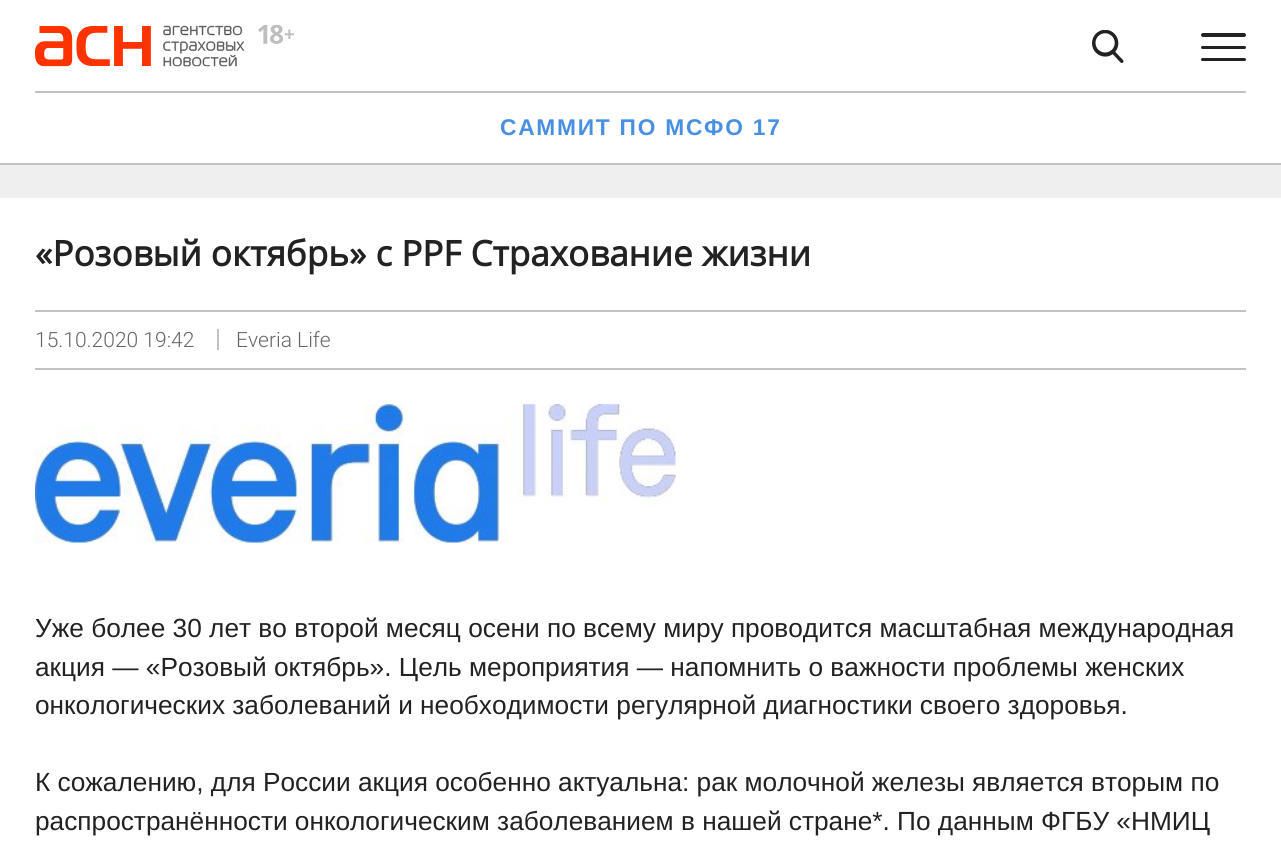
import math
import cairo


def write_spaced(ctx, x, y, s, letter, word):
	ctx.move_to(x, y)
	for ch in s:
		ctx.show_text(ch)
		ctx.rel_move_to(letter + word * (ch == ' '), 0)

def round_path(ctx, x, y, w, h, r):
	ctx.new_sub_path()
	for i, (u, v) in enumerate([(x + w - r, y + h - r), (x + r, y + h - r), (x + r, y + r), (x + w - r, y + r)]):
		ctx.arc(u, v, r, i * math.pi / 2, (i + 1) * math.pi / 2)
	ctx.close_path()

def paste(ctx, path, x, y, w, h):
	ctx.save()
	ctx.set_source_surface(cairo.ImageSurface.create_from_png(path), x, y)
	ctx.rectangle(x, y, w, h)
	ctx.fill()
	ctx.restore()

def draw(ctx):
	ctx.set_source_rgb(0.937, 0.937, 0.937)
	ctx.paint()
	ctx.set_source_rgb(1, 1, 1)
	ctx.rectangle(0, 0, 1281, 163)
	ctx.fill()
	paste(ctx, 'media/1.png', 35, 25, 260, 42)
	paste(ctx, 'media/2.png', 1092, 30, 32, 33)
	ctx.set_source_rgb(0.133, 0.133, 0.133)
	round_path(ctx, 1201, 33, 45, 4, 2)
	ctx.fill()
	round_path(ctx, 1201, 46, 45, 3, 1.5)
	ctx.fill()
	round_path(ctx, 1201, 58, 45, 3, 1.5)
	ctx.fill()
	ctx.set_source_rgb(0.761, 0.761, 0.761)
	ctx.rectangle(0, 163, 1281, 2)
	ctx.fill()
	ctx.rectangle(35, 91, 1211, 2)
	ctx.fill()
	ctx.select_font_face('Liberation Sans', cairo.FONT_SLANT_NORMAL, cairo.FONT_WEIGHT_BOLD)
	ctx.set_font_size(22.75)
	ctx.set_source_rgb(0.286, 0.565, 0.886)
	write_spaced(ctx, 500, 135, 'САММИТ ПО МСФО 17', 1.75, 0)
	ctx.set_source_rgb(1, 1, 1)
	ctx.rectangle(0, 198, 1281, 660)
	ctx.fill()
	ctx.select_font_face('Open Sans', cairo.FONT_SLANT_NORMAL, cairo.FONT_WEIGHT_BOLD)
	ctx.set_font_size(35)
	ctx.set_source_rgb(0.133, 0.133, 0.133)
	ctx.move_to(35, 266)
	ctx.show_text('«Розовый октябрь» с PPF Страхование жизни')
	ctx.set_source_rgb(0.761, 0.761, 0.761)
	ctx.rectangle(35, 310, 1211, 2)
	ctx.fill()
	ctx.rectangle(35, 368, 1211, 2)
	ctx.fill()
	ctx.select_font_face('Roboto Light')
	ctx.set_font_size(21)
	ctx.set_source_rgb(0.4, 0.4, 0.4)
	ctx.move_to(35, 347)
	ctx.show_text('15.10.2020 19:42')
	ctx.set_source_rgb(0.761, 0.761, 0.761)
	ctx.rectangle(217, 329, 2, 21)
	ctx.fill()
	ctx.set_source_rgb(0.4, 0.4, 0.4)
	ctx.move_to(236, 347)
	ctx.show_text('Everia Life')
	paste(ctx, 'media/3.png', 35, 404, 641, 139)
	ctx.select_font_face('Liberation Sans')
	ctx.set_font_size(26.25)
	ctx.set_source_rgb(0.133, 0.133, 0.133)
	for x, y, s in [
		(35, 637, 'Уже более 30 лет во второй месяц осени по всему миру проводится масштабная международная'),
		(35, 676, 'акция — «Розовый октябрь». Цель мероприятия — напомнить о важности проблемы женских'),
		(35, 714, 'онкологических заболеваний и необходимости регулярной диагностики своего здоровья.'),
		(35, 791, 'К сожалению, для России акция особенно актуальна: рак молочной железы является вторым по'),
		(35, 830, 'распространённости онкологическим заболеванием в нашей стране*. По данным ФГБУ «НМИЦ'),
	]:
		ctx.move_to(x, y)
		ctx.show_text(s)


surface = cairo.ImageSurface(cairo.FORMAT_RGB24, 1281, 858)
ctx = cairo.Context(surface)
options = cairo.FontOptions()
options.set_hint_metrics(cairo.HINT_METRICS_OFF)
options.set_hint_style(cairo.HINT_STYLE_NONE)
ctx.set_font_options(options)
ctx.set_miter_limit(4)
draw(ctx)
surface.write_to_png('image.png')
